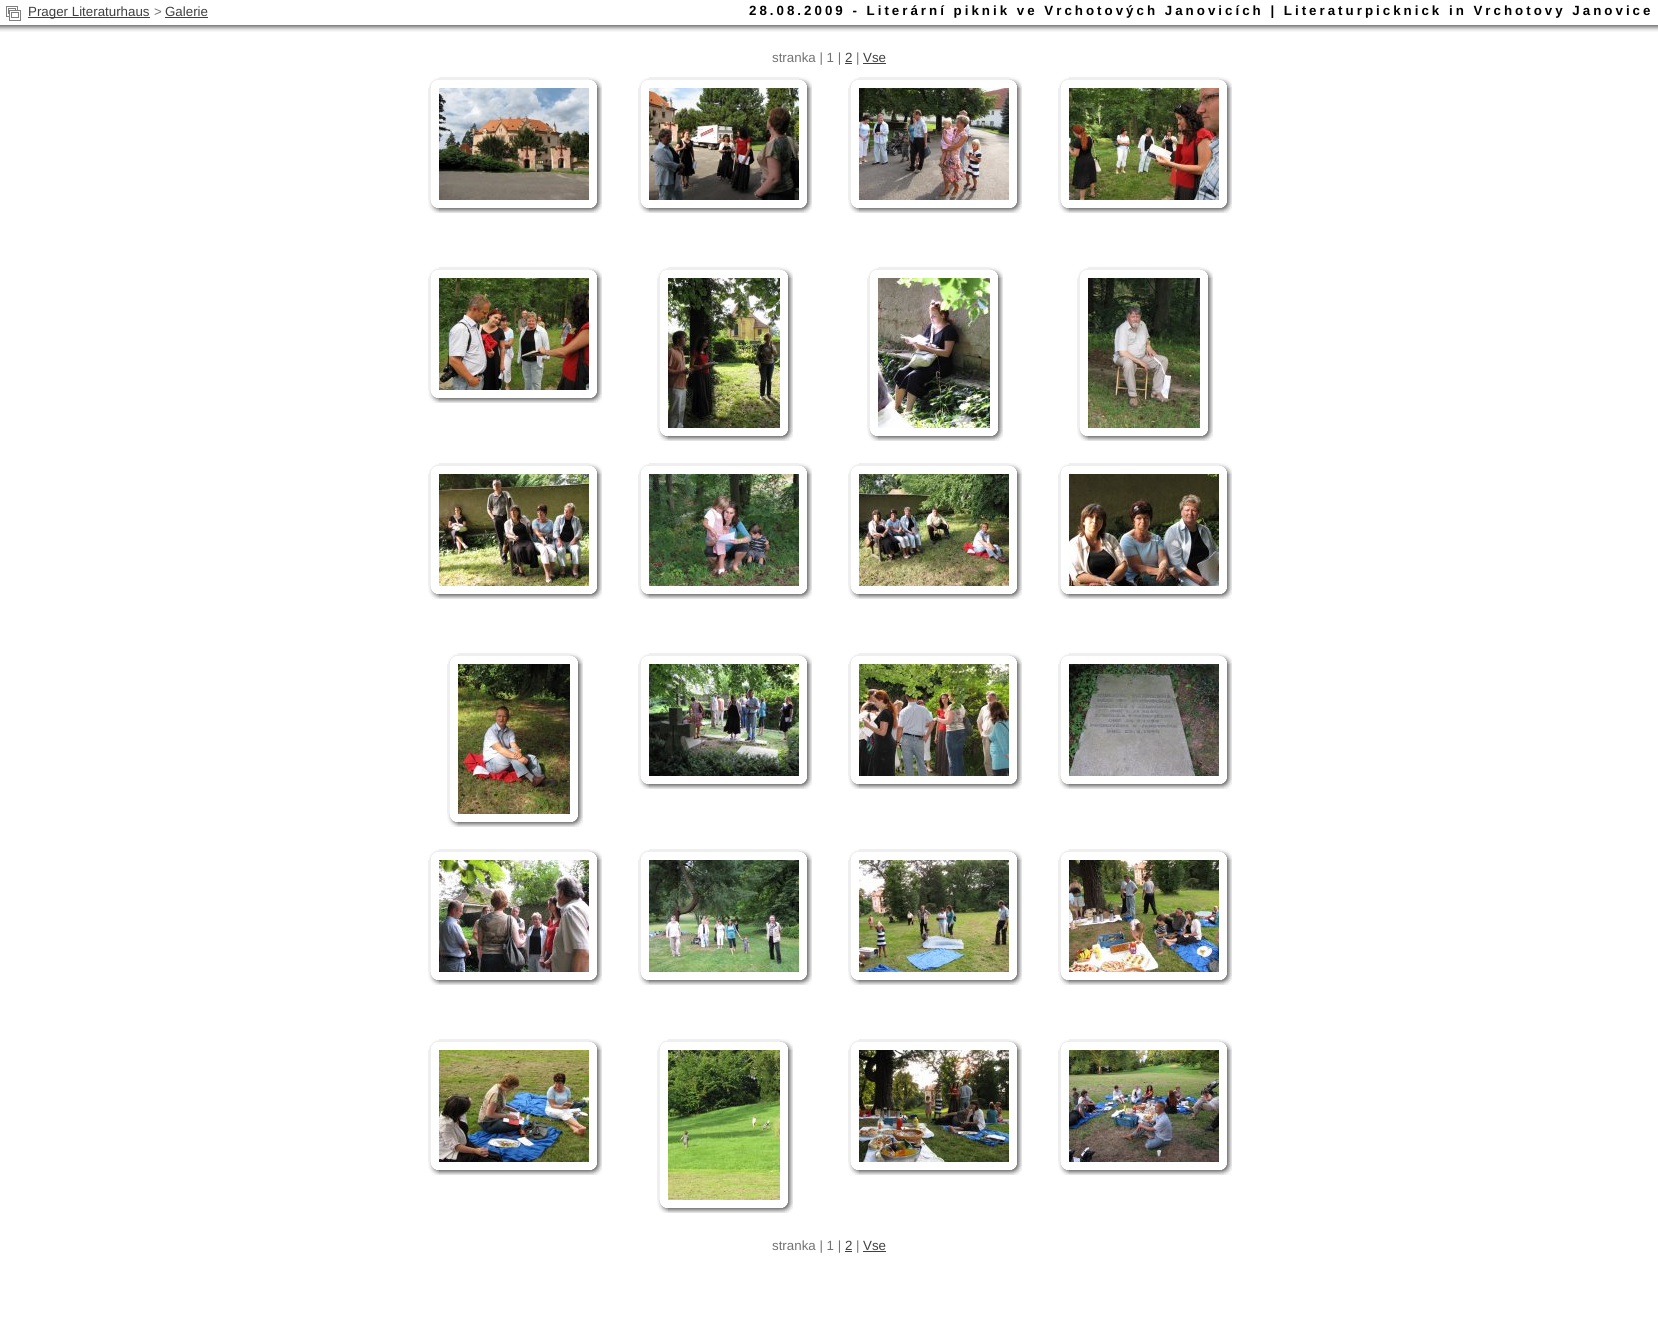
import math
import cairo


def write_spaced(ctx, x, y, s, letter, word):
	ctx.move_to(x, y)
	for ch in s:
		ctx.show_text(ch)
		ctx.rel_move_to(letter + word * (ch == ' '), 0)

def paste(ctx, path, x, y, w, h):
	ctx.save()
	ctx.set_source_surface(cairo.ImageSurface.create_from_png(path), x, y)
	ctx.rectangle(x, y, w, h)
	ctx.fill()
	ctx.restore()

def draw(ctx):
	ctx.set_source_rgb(1, 1, 1)
	ctx.paint()
	paste(ctx, 'media/1.png', 0, 25, 1658, 7)
	paste(ctx, 'media/2.png', 6, 6, 15, 15)
	ctx.set_source_rgb(0.251, 0.251, 0.251)
	ctx.rectangle(28, 17, 122, 1)
	ctx.fill()
	ctx.select_font_face('Liberation Sans')
	ctx.set_font_size(13.33)
	ctx.move_to(28, 16)
	ctx.show_text('Prager Literaturhaus')
	ctx.set_source_rgb(0.451, 0.451, 0.451)
	ctx.move_to(154, 16)
	ctx.show_text('>')
	ctx.set_source_rgb(0.251, 0.251, 0.251)
	ctx.move_to(165, 16)
	ctx.show_text('Galerie')
	ctx.rectangle(165, 17, 43, 1)
	ctx.fill()
	ctx.select_font_face('Liberation Sans', cairo.FONT_SLANT_NORMAL, cairo.FONT_WEIGHT_BOLD)
	ctx.set_source_rgb(0, 0, 0)
	write_spaced(ctx, 749, 15, '28.08.2009 - Literární piknik ve Vrchotových Janovicích | Literaturpicknick in Vrchotovy Janovice', 3, 0)
	ctx.select_font_face('Liberation Sans')
	ctx.set_source_rgb(0.451, 0.451, 0.451)
	ctx.move_to(772, 62)
	ctx.show_text('stranka | 1 |')
	ctx.set_source_rgb(0.251, 0.251, 0.251)
	ctx.move_to(845, 62)
	ctx.show_text('2')
	ctx.rectangle(845, 63, 7, 1)
	ctx.fill()
	ctx.set_source_rgb(0.451, 0.451, 0.451)
	ctx.move_to(856, 62)
	ctx.show_text('|')
	ctx.set_source_rgb(0.251, 0.251, 0.251)
	ctx.move_to(863, 62)
	ctx.show_text('Vse')
	ctx.rectangle(863, 63, 23, 1)
	ctx.fill()
	paste(ctx, 'media/3.png', 429, 78, 10, 10)
	ctx.set_source_rgb(0.937, 0.937, 0.937)
	ctx.rectangle(439, 77, 150, 3)
	ctx.fill()
	paste(ctx, 'media/4.png', 589, 77, 13, 11)
	ctx.rectangle(428, 88, 3, 112)
	ctx.fill()
	paste(ctx, 'media/5.png', 439, 88, 150, 112)
	paste(ctx, 'media/6.png', 597, 88, 5, 112)
	paste(ctx, 'media/7.png', 428, 200, 11, 13)
	paste(ctx, 'media/8.png', 439, 208, 150, 5)
	paste(ctx, 'media/9.png', 589, 200, 13, 13)
	paste(ctx, 'media/3.png', 639, 78, 10, 10)
	ctx.rectangle(649, 77, 150, 3)
	ctx.fill()
	paste(ctx, 'media/4.png', 799, 77, 13, 11)
	ctx.rectangle(638, 88, 3, 112)
	ctx.fill()
	paste(ctx, 'media/10.png', 649, 88, 150, 112)
	paste(ctx, 'media/6.png', 807, 88, 5, 112)
	paste(ctx, 'media/7.png', 638, 200, 11, 13)
	paste(ctx, 'media/8.png', 649, 208, 150, 5)
	paste(ctx, 'media/9.png', 799, 200, 13, 13)
	paste(ctx, 'media/3.png', 849, 78, 10, 10)
	ctx.rectangle(859, 77, 150, 3)
	ctx.fill()
	paste(ctx, 'media/4.png', 1009, 77, 13, 11)
	ctx.rectangle(848, 88, 3, 112)
	ctx.fill()
	paste(ctx, 'media/11.png', 859, 88, 150, 112)
	paste(ctx, 'media/6.png', 1017, 88, 5, 112)
	paste(ctx, 'media/7.png', 848, 200, 11, 13)
	paste(ctx, 'media/8.png', 859, 208, 150, 5)
	paste(ctx, 'media/9.png', 1009, 200, 13, 13)
	paste(ctx, 'media/3.png', 1059, 78, 10, 10)
	ctx.rectangle(1069, 77, 150, 3)
	ctx.fill()
	paste(ctx, 'media/4.png', 1219, 77, 13, 11)
	ctx.rectangle(1058, 88, 3, 112)
	ctx.fill()
	paste(ctx, 'media/12.png', 1069, 88, 150, 112)
	paste(ctx, 'media/6.png', 1227, 88, 5, 112)
	paste(ctx, 'media/7.png', 1058, 200, 11, 13)
	paste(ctx, 'media/8.png', 1069, 208, 150, 5)
	paste(ctx, 'media/9.png', 1219, 200, 13, 13)
	paste(ctx, 'media/3.png', 429, 268, 10, 10)
	ctx.rectangle(439, 267, 150, 3)
	ctx.fill()
	paste(ctx, 'media/4.png', 589, 267, 13, 11)
	ctx.rectangle(428, 278, 3, 112)
	ctx.fill()
	paste(ctx, 'media/13.png', 439, 278, 150, 112)
	paste(ctx, 'media/6.png', 597, 278, 5, 112)
	paste(ctx, 'media/7.png', 428, 390, 11, 13)
	paste(ctx, 'media/8.png', 439, 398, 150, 5)
	paste(ctx, 'media/9.png', 589, 390, 13, 13)
	paste(ctx, 'media/3.png', 658, 268, 10, 10)
	ctx.rectangle(668, 267, 112, 3)
	ctx.fill()
	paste(ctx, 'media/4.png', 780, 267, 13, 11)
	ctx.rectangle(657, 278, 3, 150)
	ctx.fill()
	paste(ctx, 'media/14.png', 668, 278, 112, 150)
	paste(ctx, 'media/15.png', 788, 278, 5, 150)
	paste(ctx, 'media/7.png', 657, 428, 11, 13)
	paste(ctx, 'media/16.png', 668, 436, 112, 5)
	paste(ctx, 'media/9.png', 780, 428, 13, 13)
	paste(ctx, 'media/3.png', 868, 268, 10, 10)
	ctx.rectangle(878, 267, 112, 3)
	ctx.fill()
	paste(ctx, 'media/4.png', 990, 267, 13, 11)
	ctx.rectangle(867, 278, 3, 150)
	ctx.fill()
	paste(ctx, 'media/17.png', 878, 278, 112, 150)
	paste(ctx, 'media/15.png', 998, 278, 5, 150)
	paste(ctx, 'media/7.png', 867, 428, 11, 13)
	paste(ctx, 'media/16.png', 878, 436, 112, 5)
	paste(ctx, 'media/9.png', 990, 428, 13, 13)
	paste(ctx, 'media/3.png', 1078, 268, 10, 10)
	ctx.rectangle(1088, 267, 112, 3)
	ctx.fill()
	paste(ctx, 'media/4.png', 1200, 267, 13, 11)
	ctx.rectangle(1077, 278, 3, 150)
	ctx.fill()
	paste(ctx, 'media/18.png', 1088, 278, 112, 150)
	paste(ctx, 'media/15.png', 1208, 278, 5, 150)
	paste(ctx, 'media/7.png', 1077, 428, 11, 13)
	paste(ctx, 'media/16.png', 1088, 436, 112, 5)
	paste(ctx, 'media/9.png', 1200, 428, 13, 13)
	paste(ctx, 'media/3.png', 429, 464, 10, 10)
	ctx.rectangle(439, 463, 150, 3)
	ctx.fill()
	paste(ctx, 'media/4.png', 589, 463, 13, 11)
	ctx.rectangle(428, 474, 3, 112)
	ctx.fill()
	paste(ctx, 'media/19.png', 439, 474, 150, 112)
	paste(ctx, 'media/6.png', 597, 474, 5, 112)
	paste(ctx, 'media/7.png', 428, 586, 11, 13)
	paste(ctx, 'media/8.png', 439, 594, 150, 5)
	paste(ctx, 'media/9.png', 589, 586, 13, 13)
	paste(ctx, 'media/3.png', 639, 464, 10, 10)
	ctx.rectangle(649, 463, 150, 3)
	ctx.fill()
	paste(ctx, 'media/4.png', 799, 463, 13, 11)
	ctx.rectangle(638, 474, 3, 112)
	ctx.fill()
	paste(ctx, 'media/20.png', 649, 474, 150, 112)
	paste(ctx, 'media/6.png', 807, 474, 5, 112)
	paste(ctx, 'media/7.png', 638, 586, 11, 13)
	paste(ctx, 'media/8.png', 649, 594, 150, 5)
	paste(ctx, 'media/9.png', 799, 586, 13, 13)
	paste(ctx, 'media/3.png', 849, 464, 10, 10)
	ctx.rectangle(859, 463, 150, 3)
	ctx.fill()
	paste(ctx, 'media/4.png', 1009, 463, 13, 11)
	ctx.rectangle(848, 474, 3, 112)
	ctx.fill()
	paste(ctx, 'media/21.png', 859, 474, 150, 112)
	paste(ctx, 'media/6.png', 1017, 474, 5, 112)
	paste(ctx, 'media/7.png', 848, 586, 11, 13)
	paste(ctx, 'media/8.png', 859, 594, 150, 5)
	paste(ctx, 'media/9.png', 1009, 586, 13, 13)
	paste(ctx, 'media/3.png', 1059, 464, 10, 10)
	ctx.rectangle(1069, 463, 150, 3)
	ctx.fill()
	paste(ctx, 'media/4.png', 1219, 463, 13, 11)
	ctx.rectangle(1058, 474, 3, 112)
	ctx.fill()
	paste(ctx, 'media/22.png', 1069, 474, 150, 112)
	paste(ctx, 'media/6.png', 1227, 474, 5, 112)
	paste(ctx, 'media/7.png', 1058, 586, 11, 13)
	paste(ctx, 'media/8.png', 1069, 594, 150, 5)
	paste(ctx, 'media/9.png', 1219, 586, 13, 13)
	paste(ctx, 'media/3.png', 448, 654, 10, 10)
	ctx.rectangle(458, 653, 112, 3)
	ctx.fill()
	paste(ctx, 'media/4.png', 570, 653, 13, 11)
	ctx.rectangle(447, 664, 3, 150)
	ctx.fill()
	paste(ctx, 'media/23.png', 458, 664, 112, 150)
	paste(ctx, 'media/15.png', 578, 664, 5, 150)
	paste(ctx, 'media/7.png', 447, 814, 11, 13)
	paste(ctx, 'media/16.png', 458, 822, 112, 5)
	paste(ctx, 'media/9.png', 570, 814, 13, 13)
	paste(ctx, 'media/3.png', 639, 654, 10, 10)
	ctx.rectangle(649, 653, 150, 3)
	ctx.fill()
	paste(ctx, 'media/4.png', 799, 653, 13, 11)
	ctx.rectangle(638, 664, 3, 112)
	ctx.fill()
	paste(ctx, 'media/24.png', 649, 664, 150, 112)
	paste(ctx, 'media/6.png', 807, 664, 5, 112)
	paste(ctx, 'media/7.png', 638, 776, 11, 13)
	paste(ctx, 'media/8.png', 649, 784, 150, 5)
	paste(ctx, 'media/9.png', 799, 776, 13, 13)
	paste(ctx, 'media/3.png', 849, 654, 10, 10)
	ctx.rectangle(859, 653, 150, 3)
	ctx.fill()
	paste(ctx, 'media/4.png', 1009, 653, 13, 11)
	ctx.rectangle(848, 664, 3, 112)
	ctx.fill()
	paste(ctx, 'media/25.png', 859, 664, 150, 112)
	paste(ctx, 'media/6.png', 1017, 664, 5, 112)
	paste(ctx, 'media/7.png', 848, 776, 11, 13)
	paste(ctx, 'media/8.png', 859, 784, 150, 5)
	paste(ctx, 'media/9.png', 1009, 776, 13, 13)
	paste(ctx, 'media/3.png', 1059, 654, 10, 10)
	ctx.rectangle(1069, 653, 150, 3)
	ctx.fill()
	paste(ctx, 'media/4.png', 1219, 653, 13, 11)
	ctx.rectangle(1058, 664, 3, 112)
	ctx.fill()
	paste(ctx, 'media/26.png', 1069, 664, 150, 112)
	paste(ctx, 'media/6.png', 1227, 664, 5, 112)
	paste(ctx, 'media/7.png', 1058, 776, 11, 13)
	paste(ctx, 'media/8.png', 1069, 784, 150, 5)
	paste(ctx, 'media/9.png', 1219, 776, 13, 13)
	paste(ctx, 'media/3.png', 429, 850, 10, 10)
	ctx.rectangle(439, 849, 150, 3)
	ctx.fill()
	paste(ctx, 'media/4.png', 589, 849, 13, 11)
	ctx.rectangle(428, 860, 3, 112)
	ctx.fill()
	paste(ctx, 'media/27.png', 439, 860, 150, 112)
	paste(ctx, 'media/6.png', 597, 860, 5, 112)
	paste(ctx, 'media/7.png', 428, 972, 11, 13)
	paste(ctx, 'media/8.png', 439, 980, 150, 5)
	paste(ctx, 'media/9.png', 589, 972, 13, 13)
	paste(ctx, 'media/3.png', 639, 850, 10, 10)
	ctx.rectangle(649, 849, 150, 3)
	ctx.fill()
	paste(ctx, 'media/4.png', 799, 849, 13, 11)
	ctx.rectangle(638, 860, 3, 112)
	ctx.fill()
	paste(ctx, 'media/28.png', 649, 860, 150, 112)
	paste(ctx, 'media/6.png', 807, 860, 5, 112)
	paste(ctx, 'media/7.png', 638, 972, 11, 13)
	paste(ctx, 'media/8.png', 649, 980, 150, 5)
	paste(ctx, 'media/9.png', 799, 972, 13, 13)
	paste(ctx, 'media/3.png', 849, 850, 10, 10)
	ctx.rectangle(859, 849, 150, 3)
	ctx.fill()
	paste(ctx, 'media/4.png', 1009, 849, 13, 11)
	ctx.rectangle(848, 860, 3, 112)
	ctx.fill()
	paste(ctx, 'media/29.png', 859, 860, 150, 112)
	paste(ctx, 'media/6.png', 1017, 860, 5, 112)
	paste(ctx, 'media/7.png', 848, 972, 11, 13)
	paste(ctx, 'media/8.png', 859, 980, 150, 5)
	paste(ctx, 'media/9.png', 1009, 972, 13, 13)
	paste(ctx, 'media/3.png', 1059, 850, 10, 10)
	ctx.rectangle(1069, 849, 150, 3)
	ctx.fill()
	paste(ctx, 'media/4.png', 1219, 849, 13, 11)
	ctx.rectangle(1058, 860, 3, 112)
	ctx.fill()
	paste(ctx, 'media/30.png', 1069, 860, 150, 112)
	paste(ctx, 'media/6.png', 1227, 860, 5, 112)
	paste(ctx, 'media/7.png', 1058, 972, 11, 13)
	paste(ctx, 'media/8.png', 1069, 980, 150, 5)
	paste(ctx, 'media/9.png', 1219, 972, 13, 13)
	paste(ctx, 'media/3.png', 429, 1040, 10, 10)
	ctx.rectangle(439, 1039, 150, 3)
	ctx.fill()
	paste(ctx, 'media/4.png', 589, 1039, 13, 11)
	ctx.rectangle(428, 1050, 3, 112)
	ctx.fill()
	paste(ctx, 'media/31.png', 439, 1050, 150, 112)
	paste(ctx, 'media/6.png', 597, 1050, 5, 112)
	paste(ctx, 'media/7.png', 428, 1162, 11, 13)
	paste(ctx, 'media/8.png', 439, 1170, 150, 5)
	paste(ctx, 'media/9.png', 589, 1162, 13, 13)
	paste(ctx, 'media/3.png', 658, 1040, 10, 10)
	ctx.rectangle(668, 1039, 112, 3)
	ctx.fill()
	paste(ctx, 'media/4.png', 780, 1039, 13, 11)
	ctx.rectangle(657, 1050, 3, 150)
	ctx.fill()
	paste(ctx, 'media/32.png', 668, 1050, 112, 150)
	paste(ctx, 'media/15.png', 788, 1050, 5, 150)
	paste(ctx, 'media/7.png', 657, 1200, 11, 13)
	paste(ctx, 'media/16.png', 668, 1208, 112, 5)
	paste(ctx, 'media/9.png', 780, 1200, 13, 13)
	paste(ctx, 'media/3.png', 849, 1040, 10, 10)
	ctx.rectangle(859, 1039, 150, 3)
	ctx.fill()
	paste(ctx, 'media/4.png', 1009, 1039, 13, 11)
	ctx.rectangle(848, 1050, 3, 112)
	ctx.fill()
	paste(ctx, 'media/33.png', 859, 1050, 150, 112)
	paste(ctx, 'media/6.png', 1017, 1050, 5, 112)
	paste(ctx, 'media/7.png', 848, 1162, 11, 13)
	paste(ctx, 'media/8.png', 859, 1170, 150, 5)
	paste(ctx, 'media/9.png', 1009, 1162, 13, 13)
	paste(ctx, 'media/3.png', 1059, 1040, 10, 10)
	ctx.rectangle(1069, 1039, 150, 3)
	ctx.fill()
	paste(ctx, 'media/4.png', 1219, 1039, 13, 11)
	ctx.rectangle(1058, 1050, 3, 112)
	ctx.fill()
	paste(ctx, 'media/34.png', 1069, 1050, 150, 112)
	paste(ctx, 'media/6.png', 1227, 1050, 5, 112)
	paste(ctx, 'media/7.png', 1058, 1162, 11, 13)
	paste(ctx, 'media/8.png', 1069, 1170, 150, 5)
	paste(ctx, 'media/9.png', 1219, 1162, 13, 13)
	ctx.set_source_rgb(0.451, 0.451, 0.451)
	ctx.move_to(772, 1250)
	ctx.show_text('stranka | 1 |')
	ctx.set_source_rgb(0.251, 0.251, 0.251)
	ctx.move_to(845, 1250)
	ctx.show_text('2')
	ctx.rectangle(845, 1251, 7, 1)
	ctx.fill()
	ctx.set_source_rgb(0.451, 0.451, 0.451)
	ctx.move_to(856, 1250)
	ctx.show_text('|')
	ctx.set_source_rgb(0.251, 0.251, 0.251)
	ctx.move_to(863, 1250)
	ctx.show_text('Vse')
	ctx.rectangle(863, 1251, 23, 1)
	ctx.fill()


surface = cairo.ImageSurface(cairo.FORMAT_RGB24, 1658, 1331)
ctx = cairo.Context(surface)
options = cairo.FontOptions()
options.set_hint_metrics(cairo.HINT_METRICS_OFF)
options.set_hint_style(cairo.HINT_STYLE_NONE)
ctx.set_font_options(options)
ctx.set_miter_limit(4)
draw(ctx)
surface.write_to_png('image.png')
